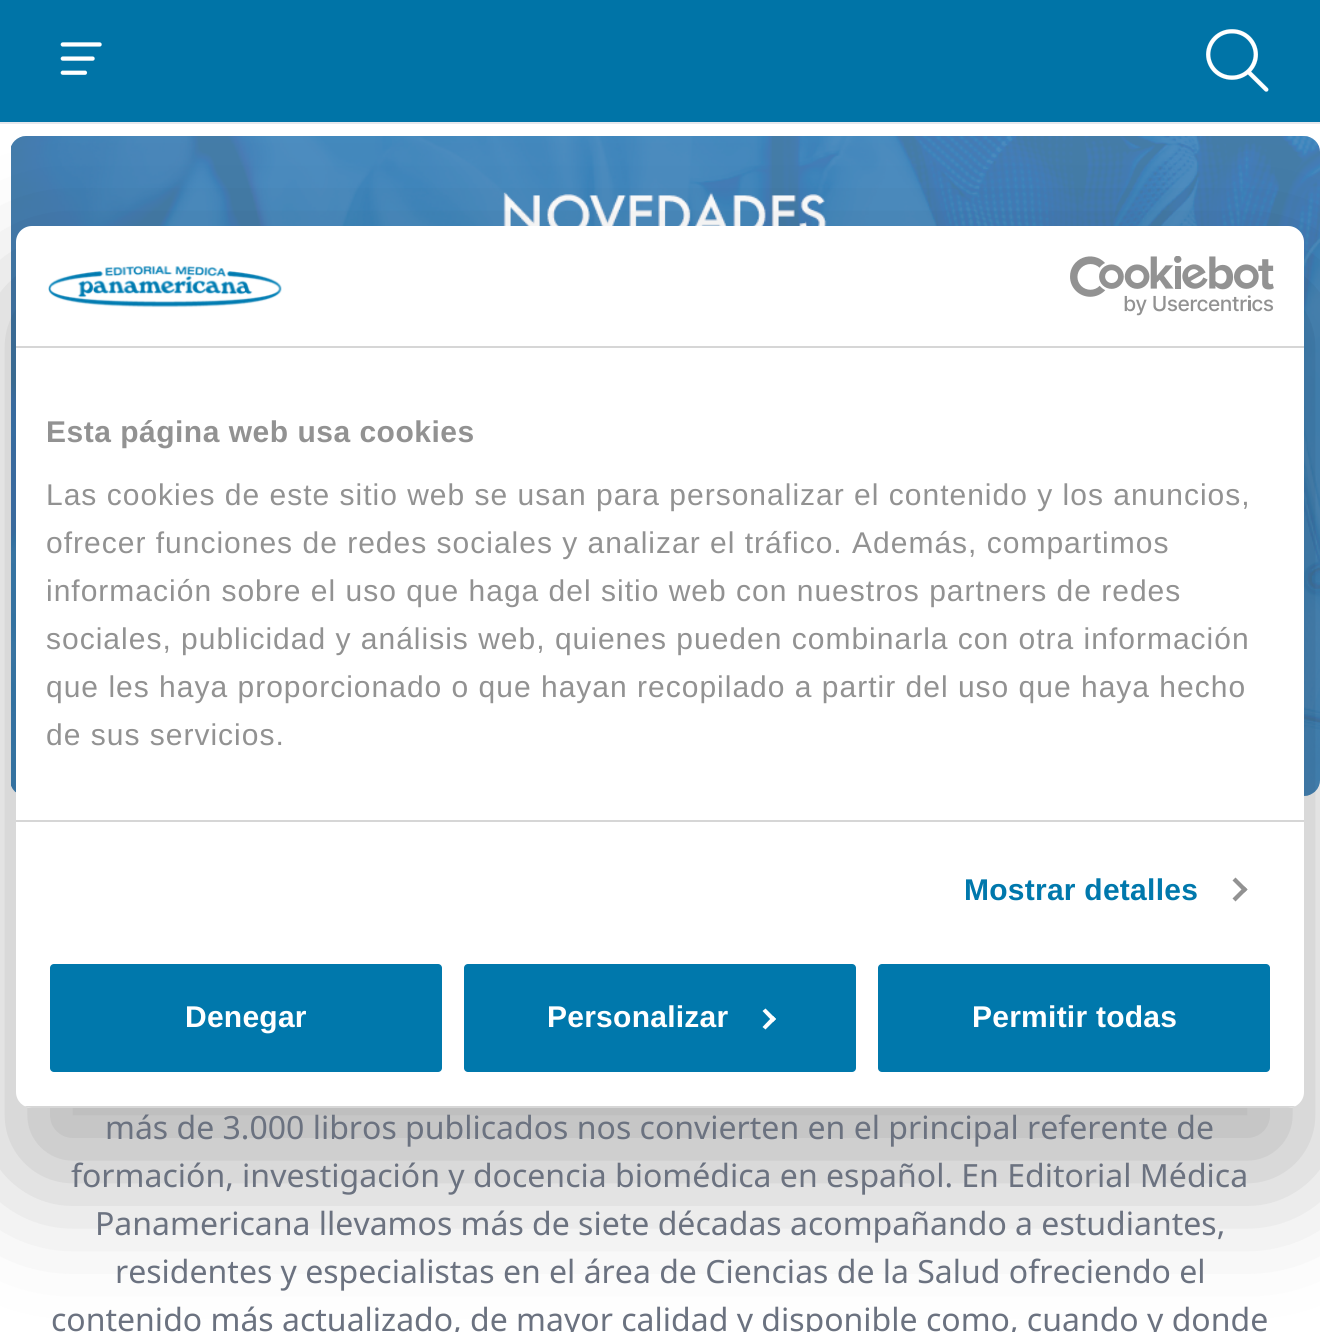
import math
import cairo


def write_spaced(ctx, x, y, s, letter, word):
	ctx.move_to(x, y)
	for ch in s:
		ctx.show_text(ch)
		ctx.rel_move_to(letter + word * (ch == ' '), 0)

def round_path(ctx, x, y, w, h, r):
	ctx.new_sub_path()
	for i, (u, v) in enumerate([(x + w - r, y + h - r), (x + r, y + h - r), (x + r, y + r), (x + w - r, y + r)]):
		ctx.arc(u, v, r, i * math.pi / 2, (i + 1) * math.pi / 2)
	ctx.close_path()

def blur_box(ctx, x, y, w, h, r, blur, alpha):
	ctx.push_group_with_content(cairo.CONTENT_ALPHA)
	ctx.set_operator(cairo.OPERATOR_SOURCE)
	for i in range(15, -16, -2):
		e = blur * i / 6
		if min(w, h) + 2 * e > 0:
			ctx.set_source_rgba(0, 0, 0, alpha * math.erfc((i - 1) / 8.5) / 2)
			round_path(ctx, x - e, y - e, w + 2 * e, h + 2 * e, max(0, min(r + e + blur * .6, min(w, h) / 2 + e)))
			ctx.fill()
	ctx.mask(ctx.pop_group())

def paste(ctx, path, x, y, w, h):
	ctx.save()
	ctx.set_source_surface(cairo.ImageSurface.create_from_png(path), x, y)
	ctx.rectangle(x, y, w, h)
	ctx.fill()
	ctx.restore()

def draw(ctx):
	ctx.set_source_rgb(1, 1, 1)
	ctx.paint()
	ctx.set_source_rgb(0.898, 0.906, 0.922)
	ctx.rectangle(0, 122, 1320, 2)
	ctx.fill()
	ctx.set_source_rgb(0, 0.455, 0.655)
	ctx.rectangle(0, 0, 1320, 122)
	ctx.fill()
	paste(ctx, 'media/4.png', 1206, 29, 63, 63)
	paste(ctx, 'media/5.png', 11, 136, 1309, 660)
	ctx.set_source_rgb(0, 0, 0)
	blur_box(ctx, 16, 290, 1288, 882, 16, 68, 0.3)
	ctx.set_source_rgb(1, 1, 1)
	round_path(ctx, 16, 226, 1288, 882, 16)
	ctx.fill()
	ctx.set_source_rgb(0.839, 0.839, 0.839)
	ctx.rectangle(16, 346, 1288, 2)
	ctx.fill()
	paste(ctx, 'media/1.png', 48, 265, 234, 43)
	paste(ctx, 'media/2.png', 1070, 256, 204, 60)
	ctx.rectangle(16, 820, 1288, 2)
	ctx.fill()
	ctx.select_font_face('Liberation Sans', cairo.FONT_SLANT_NORMAL, cairo.FONT_WEIGHT_BOLD)
	ctx.set_font_size(30)
	ctx.set_source_rgb(0.573, 0.573, 0.573)
	write_spaced(ctx, 46, 442, 'Esta página web usa cookies', 0.5, 0)
	ctx.select_font_face('Liberation Sans')
	for x, y, s in [
		(46, 505, 'Las cookies de este sitio web se usan para personalizar el contenido y los anuncios,'),
		(46, 553, 'ofrecer funciones de redes sociales y analizar el tráfico. Además, compartimos'),
		(46, 601, 'información sobre el uso que haga del sitio web con nuestros partners de redes'),
		(46, 649, 'sociales, publicidad y análisis web, quienes pueden combinarla con otra información'),
		(46, 697, 'que les haya proporcionado o que hayan recopilado a partir del uso que haya hecho'),
		(46, 745, 'de sus servicios.'),
	]:
		write_spaced(ctx, x, y, s, 1, 0)
	ctx.select_font_face('Liberation Sans', cairo.FONT_SLANT_NORMAL, cairo.FONT_WEIGHT_BOLD)
	ctx.set_source_rgb(0, 0.471, 0.675)
	write_spaced(ctx, 964, 900, 'Mostrar detalles', 0.25, 0)
	ctx.set_source_rgb(0.573, 0.573, 0.573)
	ctx.new_path()
	ctx.move_to(1235.5, 877.5)
	ctx.line_to(1247.5, 889.5)
	ctx.line_to(1244.5, 892.5)
	ctx.line_to(1232.5, 880.5)
	ctx.close_path()
	ctx.fill()
	ctx.new_path()
	ctx.move_to(1244.5, 886.5)
	ctx.line_to(1247.5, 889.5)
	ctx.line_to(1235.5, 901.5)
	ctx.line_to(1232.5, 898.5)
	ctx.close_path()
	ctx.fill()
	ctx.save()
	round_path(ctx, 16, 226, 1288, 882, 16)
	ctx.clip()
	ctx.set_source_rgb(0.839, 0.839, 0.839)
	ctx.rectangle(16, 1106, 1288, 2)
	ctx.fill()
	ctx.restore()
	ctx.set_source_rgb(0, 0.471, 0.675)
	round_path(ctx, 48, 962, 396, 112, 6)
	ctx.fill_preserve()
	ctx.set_source_rgb(1, 1, 1)
	ctx.set_line_width(4)
	ctx.stroke()
	write_spaced(ctx, 185, 1027, 'Denegar', 0.25, 0)
	ctx.set_source_rgb(0, 0.471, 0.675)
	round_path(ctx, 462, 962, 396, 112, 6)
	ctx.fill_preserve()
	ctx.set_source_rgb(1, 1, 1)
	ctx.stroke()
	write_spaced(ctx, 547, 1027, 'Personalizar', 0.25, 0)
	ctx.new_path()
	ctx.move_to(765.5, 1008.5)
	ctx.line_to(776, 1019)
	ctx.line_to(773, 1022)
	ctx.line_to(762.5, 1011)
	ctx.close_path()
	ctx.fill()
	ctx.new_path()
	ctx.move_to(773, 1016)
	ctx.line_to(776, 1019)
	ctx.line_to(765.5, 1029.5)
	ctx.line_to(762.5, 1027)
	ctx.close_path()
	ctx.fill()
	ctx.set_source_rgb(0, 0.471, 0.675)
	round_path(ctx, 876, 962, 396, 112, 6)
	ctx.fill_preserve()
	ctx.set_source_rgb(1, 1, 1)
	ctx.stroke()
	write_spaced(ctx, 972, 1027, 'Permitir todas', 0.25, 0)
	paste(ctx, 'media/3.png', 60, 42, 42, 33)
	ctx.select_font_face('Noto Sans')
	ctx.set_font_size(32)
	ctx.set_source_rgb(0.42, 0.447, 0.502)
	for x, y, s in [
		(105, 1139, 'más de 3.000 libros publicados nos convierten en el principal referente de'),
		(71, 1187, 'formación, investigación y docencia biomédica en español. En Editorial Médica'),
		(95, 1235, 'Panamericana llevamos más de siete décadas acompañando a estudiantes,'),
		(115, 1283, 'residentes y especialistas en el área de Ciencias de la Salud ofreciendo el'),
		(51, 1331, 'contenido más actualizado, de mayor calidad y disponible como, cuando y donde'),
	]:
		ctx.move_to(x, y)
		ctx.show_text(s)


surface = cairo.ImageSurface(cairo.FORMAT_RGB24, 1320, 1332)
ctx = cairo.Context(surface)
options = cairo.FontOptions()
options.set_hint_metrics(cairo.HINT_METRICS_OFF)
options.set_hint_style(cairo.HINT_STYLE_NONE)
ctx.set_font_options(options)
ctx.set_miter_limit(4)
draw(ctx)
surface.write_to_png('image.png')
